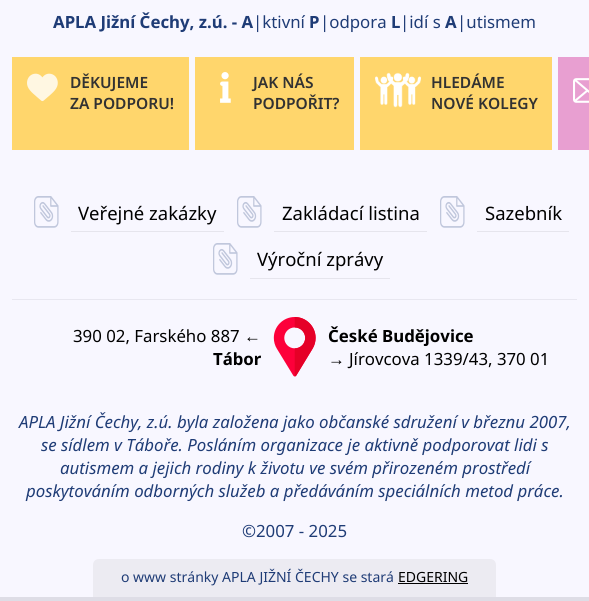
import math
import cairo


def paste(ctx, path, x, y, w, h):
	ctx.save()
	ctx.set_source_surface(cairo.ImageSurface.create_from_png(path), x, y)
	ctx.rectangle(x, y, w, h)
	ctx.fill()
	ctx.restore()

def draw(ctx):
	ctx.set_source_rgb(0.969, 0.965, 1)
	ctx.paint()
	ctx.set_source_rgb(0.91, 0.906, 0.941)
	ctx.rectangle(12, 299, 565, 1)
	ctx.fill()
	ctx.select_font_face('Noto Sans', cairo.FONT_SLANT_NORMAL, cairo.FONT_WEIGHT_BOLD)
	ctx.set_font_size(16.8)
	ctx.set_source_rgb(0.122, 0.235, 0.463)
	ctx.move_to(53, 28)
	ctx.show_text('APLA Jižní Čechy, z.ú. - A')
	ctx.select_font_face('Noto Sans')
	ctx.move_to(253, 28)
	ctx.show_text('|ktivní')
	ctx.select_font_face('Noto Sans', cairo.FONT_SLANT_NORMAL, cairo.FONT_WEIGHT_BOLD)
	ctx.move_to(309, 28)
	ctx.show_text('P')
	ctx.select_font_face('Noto Sans')
	ctx.move_to(320, 28)
	ctx.show_text('|odpora')
	ctx.select_font_face('Noto Sans', cairo.FONT_SLANT_NORMAL, cairo.FONT_WEIGHT_BOLD)
	ctx.move_to(391, 28)
	ctx.show_text('L')
	ctx.select_font_face('Noto Sans')
	ctx.move_to(400, 28)
	ctx.show_text('|idí s')
	ctx.select_font_face('Noto Sans', cairo.FONT_SLANT_NORMAL, cairo.FONT_WEIGHT_BOLD)
	ctx.move_to(445, 28)
	ctx.show_text('A')
	ctx.select_font_face('Noto Sans')
	ctx.move_to(457, 28)
	ctx.show_text('|utismem')
	ctx.set_source_rgb(1, 0.839, 0.424)
	ctx.rectangle(12, 57, 177, 93)
	ctx.fill()
	paste(ctx, 'media/1.png', 27, 73, 31, 29)
	ctx.select_font_face('Noto Sans SemiBold')
	ctx.set_font_size(15.5)
	ctx.set_source_rgb(0.196, 0.196, 0.196)
	ctx.move_to(70, 88)
	ctx.show_text('DĚKUJEME')
	ctx.move_to(70, 109)
	ctx.show_text('ZA PODPORU!')
	ctx.set_source_rgb(1, 0.839, 0.424)
	ctx.rectangle(195, 57, 159, 93)
	ctx.fill()
	paste(ctx, 'media/2.png', 220, 72, 11, 31)
	ctx.set_source_rgb(0.196, 0.196, 0.196)
	ctx.move_to(253, 88)
	ctx.show_text('JAK NÁS')
	ctx.move_to(253, 109)
	ctx.show_text('PODPOŘIT?')
	ctx.set_source_rgb(1, 0.839, 0.424)
	ctx.rectangle(360, 57, 192, 93)
	ctx.fill()
	paste(ctx, 'media/3.png', 375, 72, 46, 36)
	ctx.set_source_rgb(0.196, 0.196, 0.196)
	ctx.move_to(431, 88)
	ctx.show_text('HLEDÁME')
	ctx.move_to(431, 109)
	ctx.show_text('NOVÉ KOLEGY')
	ctx.set_source_rgb(0.91, 0.624, 0.82)
	ctx.rectangle(558, 57, 31, 93)
	ctx.fill()
	paste(ctx, 'media/4.png', 573, 78, 16, 25)
	paste(ctx, 'media/5.png', 34, 196, 25, 32)
	ctx.select_font_face('Noto Sans')
	ctx.set_font_size(18.5)
	ctx.set_source_rgb(0, 0, 0)
	ctx.move_to(78, 220)
	ctx.show_text('Veřejné zakázky')
	ctx.set_source_rgb(0.902, 0.898, 0.929)
	ctx.rectangle(71, 231, 153, 1)
	ctx.fill()
	paste(ctx, 'media/5.png', 237, 196, 25, 32)
	ctx.set_source_rgb(0, 0, 0)
	ctx.move_to(282, 220)
	ctx.show_text('Zakládací listina')
	ctx.set_source_rgb(0.902, 0.898, 0.929)
	ctx.rectangle(274, 231, 153, 1)
	ctx.fill()
	paste(ctx, 'media/5.png', 440, 196, 25, 32)
	ctx.set_source_rgb(0, 0, 0)
	ctx.move_to(485, 220)
	ctx.show_text('Sazebník')
	ctx.set_source_rgb(0.902, 0.898, 0.929)
	ctx.rectangle(477, 231, 92, 1)
	ctx.fill()
	paste(ctx, 'media/5.png', 213, 243, 25, 32)
	ctx.set_source_rgb(0, 0, 0)
	ctx.move_to(257, 266)
	ctx.show_text('Výroční zprávy')
	ctx.set_source_rgb(0.902, 0.898, 0.929)
	ctx.rectangle(250, 278, 140, 1)
	ctx.fill()
	paste(ctx, 'media/6.png', 273, 317, 43, 60)
	ctx.set_font_size(16.8)
	ctx.set_source_rgb(0, 0, 0)
	ctx.move_to(73, 342)
	ctx.show_text('390 02, Farského 887')
	ctx.select_font_face('Liberation Sans')
	ctx.move_to(244, 342)
	ctx.show_text('←')
	ctx.select_font_face('Noto Sans', cairo.FONT_SLANT_NORMAL, cairo.FONT_WEIGHT_BOLD)
	ctx.move_to(213, 365)
	ctx.show_text('Tábor')
	ctx.move_to(328, 342)
	ctx.show_text('České Budějovice')
	ctx.select_font_face('Liberation Sans')
	ctx.move_to(328, 365)
	ctx.show_text('→')
	ctx.select_font_face('Noto Sans')
	ctx.move_to(349, 365)
	ctx.show_text('Jírovcova 1339/43, 370 01')
	ctx.select_font_face('Noto Sans', cairo.FONT_SLANT_ITALIC)
	ctx.set_source_rgb(0.122, 0.235, 0.463)
	for x, y, s in [
		(19, 428, 'APLA Jižní Čechy, z.ú. byla založena jako občanské sdružení v březnu 2007,'),
		(41, 451, 'se sídlem v Táboře. Posláním organizace je aktivně podporovat lidi s'),
		(60, 474, 'autismem a jejich rodiny k životu ve svém přirozeném prostředí'),
		(26, 497, 'poskytováním odborných služeb a předáváním speciálních metod práce.'),
	]:
		ctx.move_to(x, y)
		ctx.show_text(s)
	ctx.select_font_face('Noto Sans')
	ctx.move_to(242, 537)
	ctx.show_text('©2007 - 2025')
	ctx.set_source_rgb(0.871, 0.867, 0.902)
	ctx.rectangle(0, 597, 589, 4)
	ctx.fill()
	ctx.set_source_rgb(0.922, 0.918, 0.949)
	ctx.new_path()
	ctx.move_to(99, 559)
	ctx.line_to(490, 559)
	ctx.curve_to(493.5, 559, 496, 561.5, 496, 565)
	ctx.line_to(496, 597)
	ctx.line_to(93, 597)
	ctx.line_to(93, 565)
	ctx.curve_to(93, 561.5, 95.5, 559, 99, 559)
	ctx.close_path()
	ctx.fill()
	ctx.set_font_size(14)
	ctx.set_source_rgb(0.122, 0.235, 0.463)
	ctx.move_to(121, 582)
	ctx.show_text('o www stránky APLA JIŽNÍ ČECHY se stará')
	ctx.set_source_rgb(0, 0, 0)
	ctx.move_to(398, 582)
	ctx.show_text('EDGERING')
	ctx.rectangle(398, 583, 70, 1)
	ctx.fill()


surface = cairo.ImageSurface(cairo.FORMAT_RGB24, 589, 601)
ctx = cairo.Context(surface)
options = cairo.FontOptions()
options.set_hint_metrics(cairo.HINT_METRICS_OFF)
options.set_hint_style(cairo.HINT_STYLE_NONE)
ctx.set_font_options(options)
ctx.set_miter_limit(4)
draw(ctx)
surface.write_to_png('image.png')
